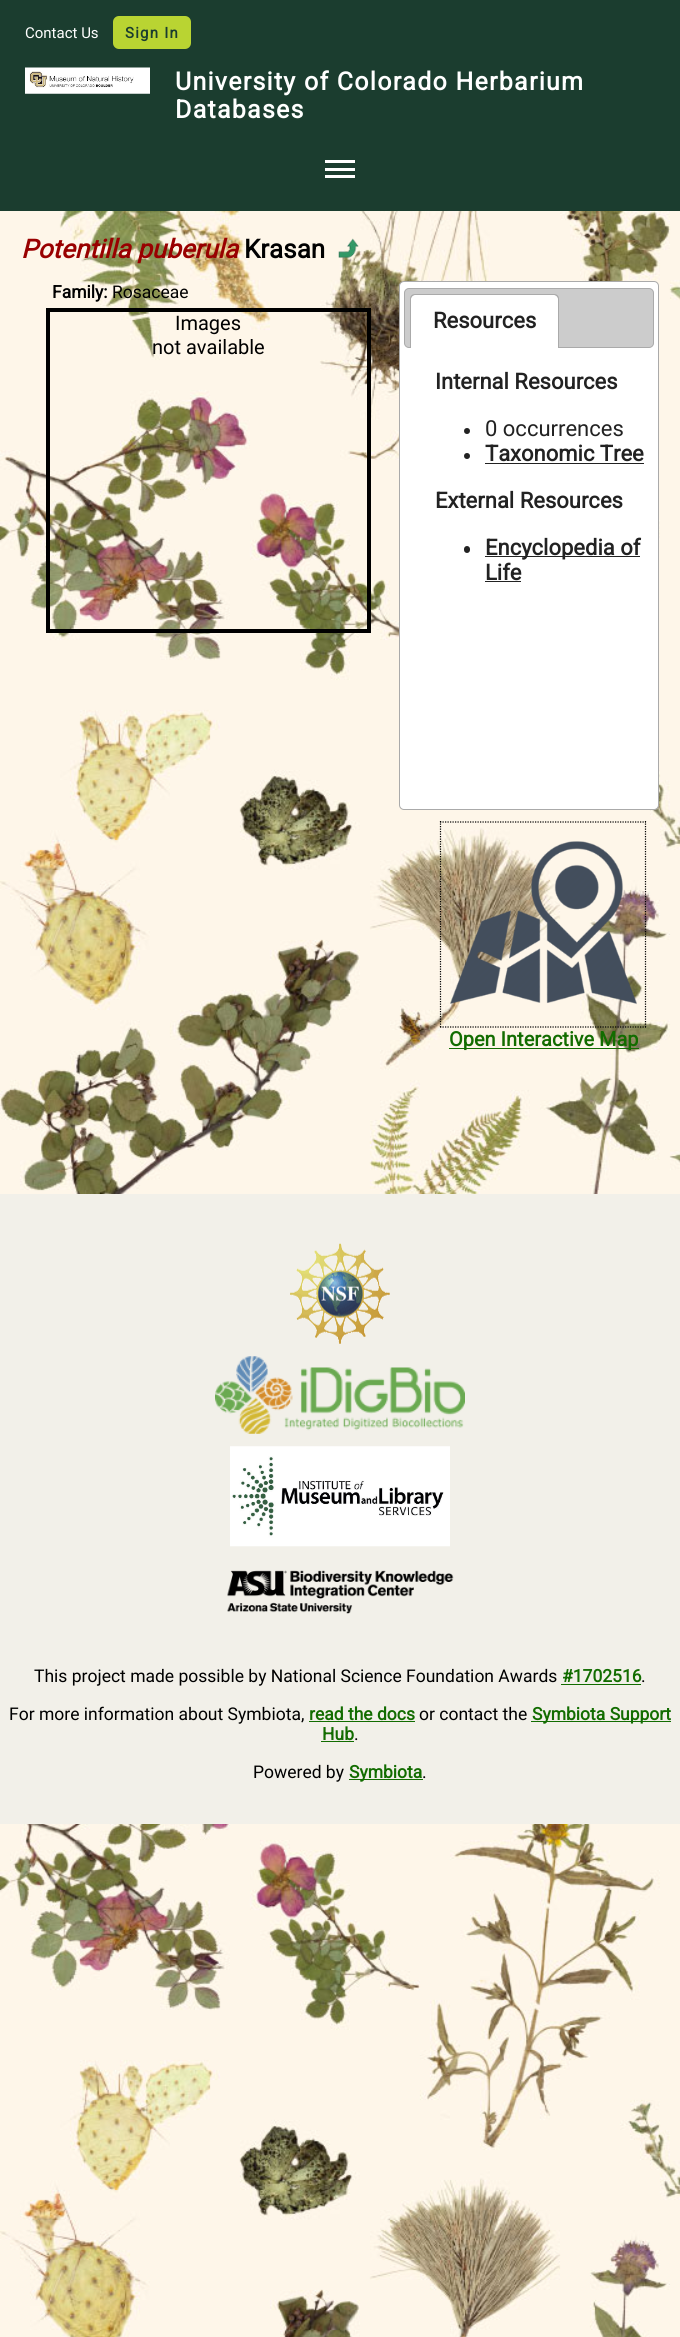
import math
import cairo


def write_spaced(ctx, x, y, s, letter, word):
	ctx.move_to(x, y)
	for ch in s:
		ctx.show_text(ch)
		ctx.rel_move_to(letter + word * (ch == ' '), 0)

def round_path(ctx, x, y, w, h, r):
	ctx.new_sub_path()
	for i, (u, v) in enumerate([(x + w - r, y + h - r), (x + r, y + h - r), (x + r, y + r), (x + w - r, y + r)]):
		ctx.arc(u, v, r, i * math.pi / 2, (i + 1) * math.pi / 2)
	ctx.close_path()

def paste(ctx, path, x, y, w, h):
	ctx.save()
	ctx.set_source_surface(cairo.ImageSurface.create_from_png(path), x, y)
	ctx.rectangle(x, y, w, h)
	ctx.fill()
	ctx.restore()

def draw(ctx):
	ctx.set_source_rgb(1, 1, 1)
	ctx.paint()
	paste(ctx, 'media/1.png', 0, 211, 680, 2126)
	ctx.set_source_rgb(0.106, 0.239, 0.184)
	ctx.rectangle(0, 0, 680, 211)
	ctx.fill()
	ctx.select_font_face('Roboto')
	ctx.set_font_size(15)
	ctx.set_source_rgb(1, 1, 1)
	ctx.move_to(25, 38)
	ctx.show_text('Contact Us')
	ctx.set_source_rgb(0.725, 0.831, 0.196)
	round_path(ctx, 113, 16, 78, 33, 6)
	ctx.fill()
	ctx.select_font_face('Roboto', cairo.FONT_SLANT_NORMAL, cairo.FONT_WEIGHT_BOLD)
	ctx.set_source_rgb(0.106, 0.239, 0.184)
	write_spaced(ctx, 125, 38, 'Sign In', 1.25, 0)
	paste(ctx, 'media/2.png', 25, 67, 125, 27)
	ctx.set_font_size(25)
	ctx.set_source_rgb(1, 1, 1)
	write_spaced(ctx, 175, 90, 'University of Colorado Herbarium', 1.25, 0)
	write_spaced(ctx, 175, 118, 'Databases', 1.25, 0)
	ctx.rectangle(325, 168, 30, 3)
	ctx.rectangle(325, 160, 30, 3)
	ctx.rectangle(325, 175, 30, 3)
	ctx.fill()
	ctx.select_font_face('Roboto', cairo.FONT_SLANT_ITALIC, cairo.FONT_WEIGHT_BOLD)
	ctx.set_font_size(26)
	ctx.set_source_rgb(0.6, 0, 0)
	ctx.move_to(21, 258)
	ctx.show_text('Potentilla puberula')
	ctx.select_font_face('Roboto', cairo.FONT_SLANT_NORMAL, cairo.FONT_WEIGHT_BOLD)
	ctx.set_source_rgb(0, 0, 0)
	ctx.move_to(244, 258)
	ctx.show_text('Krasan')
	paste(ctx, 'media/3.png', 338, 238, 21, 20)
	ctx.set_font_size(17.5)
	ctx.move_to(52, 298)
	ctx.show_text('Family:')
	ctx.select_font_face('Roboto')
	ctx.move_to(112, 298)
	ctx.show_text('Rosaceae')
	ctx.rectangle(48, 310, 321, 321)
	ctx.set_line_width(4)
	ctx.stroke()
	ctx.set_font_size(20)
	ctx.move_to(175, 330)
	ctx.show_text('Images')
	ctx.move_to(152, 354)
	ctx.show_text('not available')
	ctx.set_source_rgb(1, 1, 1)
	round_path(ctx, 399.5, 281.5, 259, 528, 4.5)
	ctx.fill_preserve()
	ctx.set_source_rgb(0.667, 0.667, 0.667)
	ctx.set_line_width(1)
	ctx.stroke()
	ctx.set_source_rgb(0.8, 0.8, 0.8)
	round_path(ctx, 404.5, 288.5, 249, 59, 4.5)
	ctx.fill_preserve()
	ctx.set_source_rgb(0.667, 0.667, 0.667)
	ctx.stroke()
	ctx.set_source_rgb(1, 1, 1)
	ctx.new_path()
	ctx.move_to(415, 295)
	ctx.line_to(554, 295)
	ctx.curve_to(556, 295, 558, 297, 558, 299)
	ctx.line_to(558, 348)
	ctx.line_to(411, 348)
	ctx.line_to(411, 299)
	ctx.curve_to(411, 297, 413, 295, 415, 295)
	ctx.close_path()
	ctx.fill()
	ctx.set_source_rgb(0.667, 0.667, 0.667)
	ctx.set_fill_rule(cairo.FILL_RULE_EVEN_ODD)
	ctx.new_path()
	ctx.move_to(415, 294)
	ctx.line_to(554, 294)
	ctx.curve_to(557, 294, 559, 296, 559, 299)
	ctx.line_to(559, 348)
	ctx.line_to(410, 348)
	ctx.line_to(410, 299)
	ctx.curve_to(410, 296, 412, 294, 415, 294)
	ctx.close_path()
	ctx.move_to(415, 295)
	ctx.line_to(554, 295)
	ctx.curve_to(556, 295, 558, 297, 558, 299)
	ctx.line_to(558, 348)
	ctx.line_to(411, 348)
	ctx.line_to(411, 299)
	ctx.curve_to(411, 297, 413, 295, 415, 295)
	ctx.close_path()
	ctx.fill()
	ctx.select_font_face('Roboto', cairo.FONT_SLANT_NORMAL, cairo.FONT_WEIGHT_BOLD)
	ctx.set_font_size(22)
	ctx.set_source_rgb(0.133, 0.133, 0.133)
	ctx.move_to(433, 328)
	ctx.show_text('Resources')
	ctx.move_to(435, 389)
	ctx.show_text('Internal Resources')
	ctx.new_path()
	ctx.arc(467, 431, 3, 0, 2 * math.pi)
	ctx.fill()
	ctx.select_font_face('Roboto')
	ctx.move_to(485, 436)
	ctx.show_text('0 occurrences')
	ctx.new_path()
	ctx.arc(467, 456, 3, 0, 2 * math.pi)
	ctx.fill()
	ctx.select_font_face('Roboto', cairo.FONT_SLANT_NORMAL, cairo.FONT_WEIGHT_BOLD)
	ctx.move_to(485, 461)
	ctx.show_text('Taxonomic Tree')
	ctx.rectangle(485, 463, 159, 1)
	ctx.fill()
	ctx.move_to(435, 508)
	ctx.show_text('External Resources')
	round_path(ctx, 464, 546, 6, 7, 3)
	ctx.fill()
	ctx.rectangle(485, 556, 155, 1)
	ctx.fill()
	ctx.move_to(485, 555)
	ctx.show_text('Encyclopedia of')
	ctx.move_to(485, 580)
	ctx.show_text('Life')
	ctx.rectangle(485, 581, 36, 1)
	ctx.fill()
	ctx.new_path()
	ctx.move_to(440, 822)
	ctx.line_to(646, 822)
	ctx.set_source_rgb(0, 0, 0)
	ctx.set_line_width(1.2)
	ctx.set_dash([1.25, 1.25])
	ctx.stroke()
	ctx.new_path()
	ctx.move_to(645.5, 821)
	ctx.line_to(645.5, 1027.5)
	ctx.stroke()
	ctx.new_path()
	ctx.move_to(440, 1027)
	ctx.line_to(646, 1027)
	ctx.stroke()
	ctx.new_path()
	ctx.move_to(440.5, 821)
	ctx.line_to(440.5, 1027.5)
	ctx.stroke()
	paste(ctx, 'media/4.png', 450, 841, 187, 164)
	ctx.set_source_rgb(0.071, 0.424, 0)
	ctx.rectangle(449, 1048, 190, 1)
	ctx.fill()
	ctx.set_font_size(20)
	ctx.move_to(449, 1046)
	ctx.show_text('Open Interactive Map')
	ctx.set_source_rgb(0.949, 0.941, 0.914)
	ctx.rectangle(0, 1194, 680, 630)
	ctx.fill()
	paste(ctx, 'media/5.png', 290, 1243, 100, 101)
	paste(ctx, 'media/6.png', 215, 1356, 250, 78)
	paste(ctx, 'media/7.png', 230, 1446, 220, 101)
	paste(ctx, 'media/8.png', 227, 1570, 227, 44)
	ctx.select_font_face('Roboto')
	ctx.set_font_size(17.5)
	ctx.set_source_rgb(0, 0, 0)
	ctx.move_to(34, 1682)
	ctx.show_text('This project made possible by National Science Foundation Awards')
	ctx.select_font_face('Roboto', cairo.FONT_SLANT_NORMAL, cairo.FONT_WEIGHT_BOLD)
	ctx.set_source_rgb(0.071, 0.424, 0)
	ctx.move_to(562, 1682)
	ctx.show_text('#1702516')
	ctx.rectangle(561, 1684, 80, 1)
	ctx.fill()
	ctx.select_font_face('Roboto')
	ctx.set_source_rgb(0, 0, 0)
	ctx.move_to(641, 1682)
	ctx.show_text('.')
	ctx.move_to(9, 1720)
	ctx.show_text('For more information about Symbiota,')
	ctx.select_font_face('Roboto', cairo.FONT_SLANT_NORMAL, cairo.FONT_WEIGHT_BOLD)
	ctx.set_source_rgb(0.071, 0.424, 0)
	ctx.move_to(309, 1720)
	ctx.show_text('read the docs')
	ctx.rectangle(309, 1721, 106, 1)
	ctx.fill()
	ctx.select_font_face('Roboto')
	ctx.set_source_rgb(0, 0, 0)
	ctx.move_to(419, 1720)
	ctx.show_text('or contact the')
	ctx.set_source_rgb(0.071, 0.424, 0)
	ctx.rectangle(531, 1721, 140, 1)
	ctx.fill()
	ctx.select_font_face('Roboto', cairo.FONT_SLANT_NORMAL, cairo.FONT_WEIGHT_BOLD)
	ctx.move_to(532, 1720)
	ctx.show_text('Symbiota Support')
	ctx.move_to(322, 1740)
	ctx.show_text('Hub')
	ctx.rectangle(321, 1741, 33, 1)
	ctx.fill()
	ctx.select_font_face('Roboto')
	ctx.set_source_rgb(0, 0, 0)
	ctx.move_to(354, 1740)
	ctx.show_text('.')
	ctx.move_to(253, 1778)
	ctx.show_text('Powered by')
	ctx.set_source_rgb(0.071, 0.424, 0)
	ctx.rectangle(349, 1779, 74, 1)
	ctx.fill()
	ctx.select_font_face('Roboto', cairo.FONT_SLANT_NORMAL, cairo.FONT_WEIGHT_BOLD)
	ctx.move_to(349, 1778)
	ctx.show_text('Symbiota')
	ctx.select_font_face('Roboto')
	ctx.set_source_rgb(0, 0, 0)
	ctx.move_to(422, 1778)
	ctx.show_text('.')


surface = cairo.ImageSurface(cairo.FORMAT_RGB24, 680, 2337)
ctx = cairo.Context(surface)
options = cairo.FontOptions()
options.set_hint_metrics(cairo.HINT_METRICS_OFF)
options.set_hint_style(cairo.HINT_STYLE_NONE)
ctx.set_font_options(options)
ctx.set_miter_limit(4)
draw(ctx)
surface.write_to_png('image.png')
